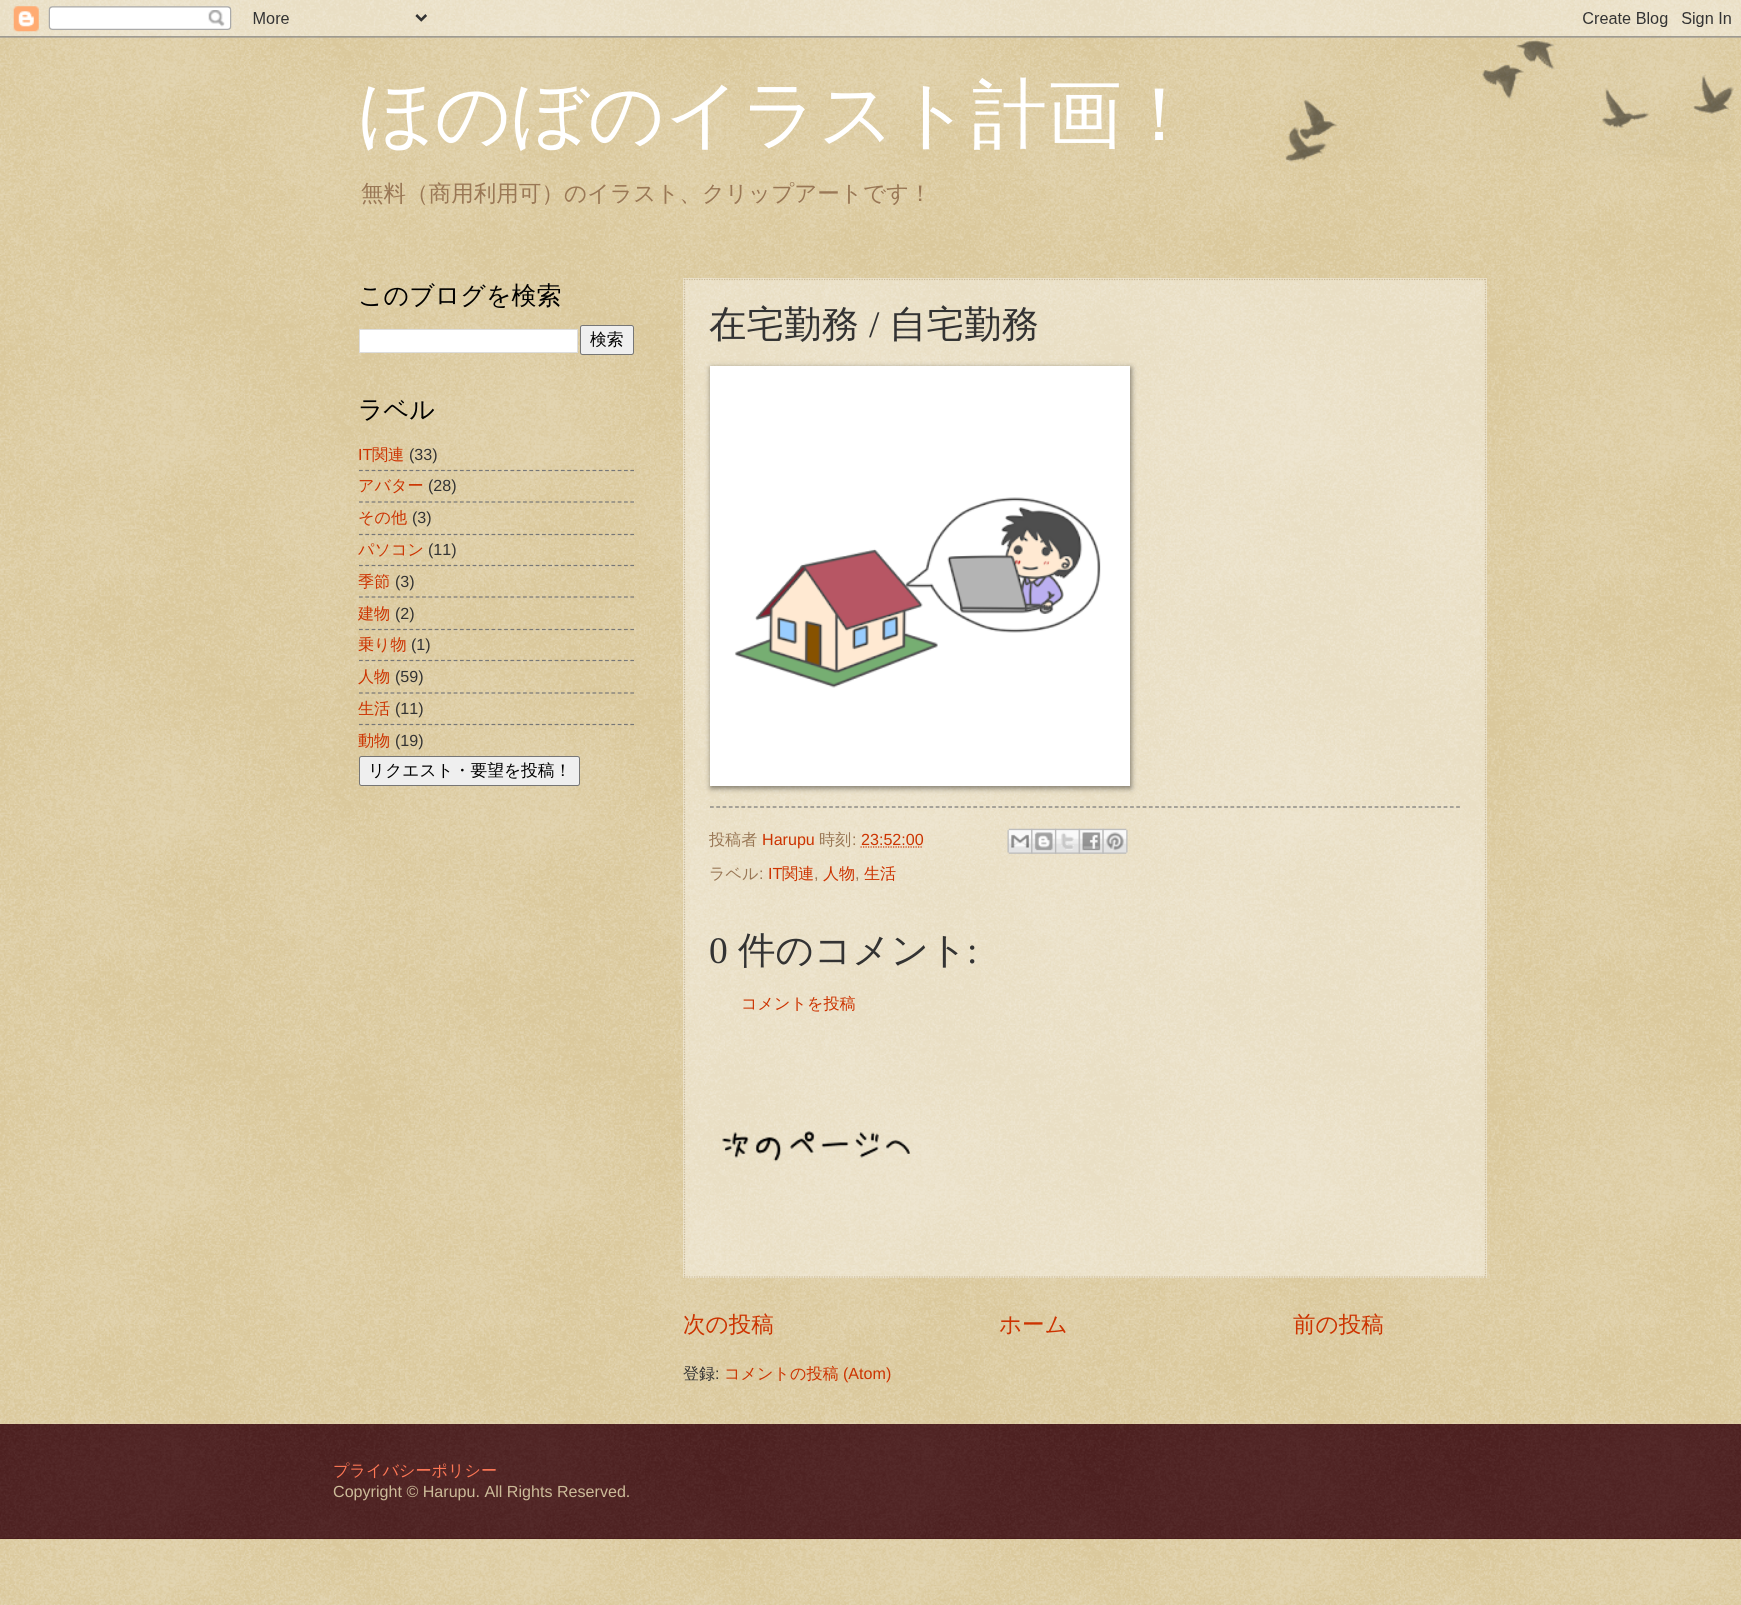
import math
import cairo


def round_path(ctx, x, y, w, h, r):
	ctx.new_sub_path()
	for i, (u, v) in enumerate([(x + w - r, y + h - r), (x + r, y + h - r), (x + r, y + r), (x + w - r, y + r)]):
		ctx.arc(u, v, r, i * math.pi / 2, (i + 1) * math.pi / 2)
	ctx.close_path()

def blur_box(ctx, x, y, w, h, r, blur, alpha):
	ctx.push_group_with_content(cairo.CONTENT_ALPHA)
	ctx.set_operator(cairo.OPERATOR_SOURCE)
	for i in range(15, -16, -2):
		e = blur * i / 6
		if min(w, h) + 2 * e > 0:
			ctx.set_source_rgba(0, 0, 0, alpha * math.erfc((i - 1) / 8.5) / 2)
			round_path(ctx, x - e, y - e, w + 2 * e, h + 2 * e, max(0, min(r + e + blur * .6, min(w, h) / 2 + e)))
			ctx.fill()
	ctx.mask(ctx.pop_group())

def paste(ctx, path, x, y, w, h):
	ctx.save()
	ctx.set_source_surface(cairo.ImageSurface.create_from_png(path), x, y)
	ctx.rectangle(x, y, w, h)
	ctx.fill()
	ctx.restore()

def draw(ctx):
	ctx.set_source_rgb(0.753, 0.631, 0.329)
	ctx.paint()
	paste(ctx, 'media/1.png', 0, 0, 1741, 1605)
	paste(ctx, 'media/2.png', 0, 0, 1741, 38)
	ctx.select_font_face('WenQuanYi Zen Hei Medium')
	ctx.set_font_size(75)
	ctx.set_source_rgb(1, 1, 1)
	ctx.move_to(358, 140)
	ctx.show_text('ほのぼのイラスト計画！')
	ctx.set_font_size(22.55)
	ctx.set_source_rgb(0.6, 0.467, 0.333)
	ctx.move_to(361, 201)
	ctx.show_text('無料（商用利用可）のイラスト、クリップアートです！')
	ctx.set_font_size(25)
	ctx.set_source_rgb(0, 0, 0)
	ctx.move_to(358, 304)
	ctx.show_text('このブログを検索')
	ctx.set_source_rgb(1, 1, 1)
	ctx.rectangle(359.5, 329.5, 218, 23)
	ctx.fill_preserve()
	ctx.set_source_rgb(0.867, 0.867, 0.867)
	ctx.set_line_width(1)
	ctx.stroke()
	ctx.set_source_rgb(0.937, 0.937, 0.937)
	round_path(ctx, 580.5, 325.5, 53, 29, 2)
	ctx.fill_preserve()
	ctx.set_source_rgb(0.463, 0.463, 0.463)
	ctx.stroke()
	ctx.set_font_size(16.75)
	ctx.set_source_rgb(0, 0, 0)
	ctx.move_to(590, 345)
	ctx.show_text('検索')
	ctx.set_font_size(25)
	ctx.move_to(358, 418)
	ctx.show_text('ラベル')
	ctx.select_font_face('Liberation Sans')
	ctx.set_font_size(16.1)
	ctx.set_source_rgb(0.8, 0.2, 0)
	ctx.move_to(358, 460)
	ctx.show_text('IT')
	ctx.select_font_face('WenQuanYi Zen Hei Medium')
	ctx.move_to(372, 460)
	ctx.show_text('関連')
	ctx.select_font_face('Liberation Sans')
	ctx.set_source_rgb(0.2, 0.2, 0.2)
	ctx.move_to(409, 460)
	ctx.show_text('(33)')
	ctx.new_path()
	ctx.move_to(359, 470.5)
	ctx.line_to(634, 470.5)
	ctx.set_source_rgb(0.467, 0.467, 0.467)
	ctx.set_line_width(1.2)
	ctx.set_dash([3.75, 2.56])
	ctx.stroke()
	ctx.select_font_face('WenQuanYi Zen Hei Medium')
	ctx.set_source_rgb(0.8, 0.2, 0)
	ctx.move_to(358, 491)
	ctx.show_text('アバター')
	ctx.select_font_face('Liberation Sans')
	ctx.set_source_rgb(0.2, 0.2, 0.2)
	ctx.move_to(428, 491)
	ctx.show_text('(28)')
	ctx.new_path()
	ctx.move_to(359, 502)
	ctx.line_to(634, 502)
	ctx.set_source_rgb(0.467, 0.467, 0.467)
	ctx.stroke()
	ctx.select_font_face('WenQuanYi Zen Hei Medium')
	ctx.set_source_rgb(0.8, 0.2, 0)
	ctx.move_to(358, 523)
	ctx.show_text('その他')
	ctx.select_font_face('Liberation Sans')
	ctx.set_source_rgb(0.2, 0.2, 0.2)
	ctx.move_to(412, 523)
	ctx.show_text('(3)')
	ctx.new_path()
	ctx.move_to(359, 534.5)
	ctx.line_to(634, 534.5)
	ctx.set_source_rgb(0.467, 0.467, 0.467)
	ctx.stroke()
	ctx.select_font_face('WenQuanYi Zen Hei Medium')
	ctx.set_source_rgb(0.8, 0.2, 0)
	ctx.move_to(358, 555)
	ctx.show_text('パソコン')
	ctx.select_font_face('Liberation Sans')
	ctx.set_source_rgb(0.2, 0.2, 0.2)
	ctx.move_to(428, 555)
	ctx.show_text('(11)')
	ctx.new_path()
	ctx.move_to(359, 565.5)
	ctx.line_to(634, 565.5)
	ctx.set_source_rgb(0.467, 0.467, 0.467)
	ctx.stroke()
	ctx.select_font_face('WenQuanYi Zen Hei Medium')
	ctx.set_source_rgb(0.8, 0.2, 0)
	ctx.move_to(358, 587)
	ctx.show_text('季節')
	ctx.select_font_face('Liberation Sans')
	ctx.set_source_rgb(0.2, 0.2, 0.2)
	ctx.move_to(395, 587)
	ctx.show_text('(3)')
	ctx.new_path()
	ctx.move_to(359, 597)
	ctx.line_to(634, 597)
	ctx.set_source_rgb(0.467, 0.467, 0.467)
	ctx.stroke()
	ctx.select_font_face('WenQuanYi Zen Hei Medium')
	ctx.set_source_rgb(0.8, 0.2, 0)
	ctx.move_to(358, 619)
	ctx.show_text('建物')
	ctx.select_font_face('Liberation Sans')
	ctx.set_source_rgb(0.2, 0.2, 0.2)
	ctx.move_to(395, 619)
	ctx.show_text('(2)')
	ctx.new_path()
	ctx.move_to(359, 629.5)
	ctx.line_to(634, 629.5)
	ctx.set_source_rgb(0.467, 0.467, 0.467)
	ctx.stroke()
	ctx.select_font_face('WenQuanYi Zen Hei Medium')
	ctx.set_source_rgb(0.8, 0.2, 0)
	ctx.move_to(358, 650)
	ctx.show_text('乗り物')
	ctx.select_font_face('Liberation Sans')
	ctx.set_source_rgb(0.2, 0.2, 0.2)
	ctx.move_to(411, 650)
	ctx.show_text('(1)')
	ctx.new_path()
	ctx.move_to(359, 660.5)
	ctx.line_to(634, 660.5)
	ctx.set_source_rgb(0.467, 0.467, 0.467)
	ctx.stroke()
	ctx.select_font_face('WenQuanYi Zen Hei Medium')
	ctx.set_source_rgb(0.8, 0.2, 0)
	ctx.move_to(358, 682)
	ctx.show_text('人物')
	ctx.select_font_face('Liberation Sans')
	ctx.set_source_rgb(0.2, 0.2, 0.2)
	ctx.move_to(395, 682)
	ctx.show_text('(59)')
	ctx.new_path()
	ctx.move_to(359, 693)
	ctx.line_to(634, 693)
	ctx.set_source_rgb(0.467, 0.467, 0.467)
	ctx.stroke()
	ctx.select_font_face('WenQuanYi Zen Hei Medium')
	ctx.set_source_rgb(0.8, 0.2, 0)
	ctx.move_to(358, 714)
	ctx.show_text('生活')
	ctx.select_font_face('Liberation Sans')
	ctx.set_source_rgb(0.2, 0.2, 0.2)
	ctx.move_to(395, 714)
	ctx.show_text('(11)')
	ctx.new_path()
	ctx.move_to(359, 724.5)
	ctx.line_to(634, 724.5)
	ctx.set_source_rgb(0.467, 0.467, 0.467)
	ctx.stroke()
	ctx.select_font_face('WenQuanYi Zen Hei Medium')
	ctx.set_source_rgb(0.8, 0.2, 0)
	ctx.move_to(358, 746)
	ctx.show_text('動物')
	ctx.select_font_face('Liberation Sans')
	ctx.set_source_rgb(0.2, 0.2, 0.2)
	ctx.move_to(395, 746)
	ctx.show_text('(19)')
	ctx.set_source_rgb(0.937, 0.937, 0.937)
	round_path(ctx, 359.5, 756.5, 220, 29, 2)
	ctx.fill_preserve()
	ctx.set_source_rgb(0.463, 0.463, 0.463)
	ctx.set_line_width(1)
	ctx.set_dash([])
	ctx.stroke()
	ctx.select_font_face('WenQuanYi Zen Hei Medium')
	ctx.set_font_size(16.75)
	ctx.set_source_rgb(0, 0, 0)
	ctx.move_to(368, 776)
	ctx.show_text('リクエスト・要望を投稿！')
	ctx.set_source_rgba(1, 1, 1, 0.4)
	ctx.rectangle(683, 278, 804, 1000)
	ctx.fill()
	ctx.new_path()
	ctx.move_to(684, 279.5)
	ctx.line_to(1486, 279.5)
	ctx.set_source_rgb(0.8, 0.733, 0.6)
	ctx.set_line_width(1.2)
	ctx.set_dash([1.25, 1.25])
	ctx.stroke()
	ctx.new_path()
	ctx.move_to(1485.5, 279)
	ctx.line_to(1485.5, 1277.5)
	ctx.stroke()
	ctx.new_path()
	ctx.move_to(684, 1277)
	ctx.line_to(1486, 1277)
	ctx.stroke()
	ctx.new_path()
	ctx.move_to(684.5, 279)
	ctx.line_to(684.5, 1277.5)
	ctx.stroke()
	ctx.set_font_size(37.5)
	ctx.set_source_rgb(0.2, 0.2, 0.2)
	ctx.move_to(709, 337)
	ctx.show_text('在宅勤務')
	ctx.select_font_face('Liberation Serif')
	ctx.move_to(869, 337)
	ctx.show_text('/')
	ctx.select_font_face('WenQuanYi Zen Hei Medium')
	ctx.move_to(889, 337)
	ctx.show_text('自宅勤務')
	ctx.set_source_rgb(0, 0, 0)
	blur_box(ctx, 711, 368, 420, 420, 0, 3, 0.5)
	ctx.set_source_rgb(1, 1, 1)
	ctx.rectangle(710, 366, 420, 420)
	ctx.fill()
	paste(ctx, 'media/3.png', 734, 497, 367, 191)
	ctx.new_path()
	ctx.move_to(710, 807)
	ctx.line_to(1460, 807)
	ctx.set_source_rgb(0.467, 0.467, 0.467)
	ctx.set_dash([3.75, 2.52])
	ctx.stroke()
	ctx.set_font_size(16.1)
	ctx.set_source_rgb(0.6, 0.467, 0.333)
	ctx.move_to(709, 845)
	ctx.show_text('投稿者')
	ctx.select_font_face('Liberation Sans')
	ctx.set_source_rgb(0.8, 0.2, 0)
	ctx.move_to(762, 845)
	ctx.show_text('Harupu')
	ctx.select_font_face('WenQuanYi Zen Hei Medium')
	ctx.set_source_rgb(0.6, 0.467, 0.333)
	ctx.move_to(819, 845)
	ctx.show_text('時刻')
	ctx.select_font_face('Liberation Sans')
	ctx.move_to(852, 845)
	ctx.show_text(':')
	ctx.set_source_rgb(0.8, 0.2, 0)
	ctx.move_to(861, 845)
	ctx.show_text('23:52:00')
	ctx.new_path()
	ctx.move_to(860.5, 847)
	ctx.line_to(923, 847)
	ctx.set_dash([1.25, 1.25])
	ctx.stroke()
	paste(ctx, 'media/4.png', 1007, 828, 26, 26)
	paste(ctx, 'media/5.png', 1031, 828, 26, 26)
	paste(ctx, 'media/6.png', 1055, 828, 25, 26)
	paste(ctx, 'media/7.png', 1078, 828, 26, 26)
	paste(ctx, 'media/8.png', 1102, 828, 26, 26)
	ctx.select_font_face('WenQuanYi Zen Hei Medium')
	ctx.set_source_rgb(0.6, 0.467, 0.333)
	ctx.move_to(709, 879)
	ctx.show_text('ラベル')
	ctx.select_font_face('Liberation Sans')
	ctx.move_to(759, 879)
	ctx.show_text(':')
	ctx.set_source_rgb(0.8, 0.2, 0)
	ctx.move_to(768, 879)
	ctx.show_text('IT')
	ctx.select_font_face('WenQuanYi Zen Hei Medium')
	for x, y, s in [
		(782, 879, '関連'),
		(823, 879, '人物'),
		(864, 879, '生活'),
	]:
		ctx.move_to(x, y)
		ctx.show_text(s)
	ctx.select_font_face('Liberation Sans')
	ctx.set_source_rgb(0.6, 0.467, 0.333)
	ctx.move_to(814, 879)
	ctx.show_text(',')
	ctx.move_to(855, 879)
	ctx.show_text(',')
	ctx.select_font_face('Liberation Serif')
	ctx.set_font_size(37.5)
	ctx.set_source_rgb(0.2, 0.2, 0.2)
	ctx.move_to(709, 963)
	ctx.show_text('0')
	ctx.select_font_face('WenQuanYi Zen Hei Medium')
	ctx.move_to(738, 963)
	ctx.show_text('件のコメント')
	ctx.select_font_face('Liberation Serif')
	ctx.move_to(967, 963)
	ctx.show_text(':')
	ctx.select_font_face('WenQuanYi Zen Hei Medium')
	ctx.set_font_size(16.1)
	ctx.set_source_rgb(0.8, 0.2, 0)
	ctx.move_to(741, 1009)
	ctx.show_text('コメントを投稿')
	paste(ctx, 'media/9.png', 722, 1131, 188, 31)
	ctx.set_font_size(22.55)
	for x, y, s in [
		(683, 1332, '次の投稿'),
		(999, 1332, 'ホーム'),
		(1293, 1332, '前の投稿'),
	]:
		ctx.move_to(x, y)
		ctx.show_text(s)
	ctx.set_font_size(16.1)
	ctx.set_source_rgb(0.2, 0.2, 0.2)
	ctx.move_to(683, 1379)
	ctx.show_text('登録')
	ctx.select_font_face('Liberation Sans')
	ctx.move_to(715, 1379)
	ctx.show_text(':')
	ctx.select_font_face('WenQuanYi Zen Hei Medium')
	ctx.set_source_rgb(0.8, 0.2, 0)
	ctx.move_to(724, 1379)
	ctx.show_text('コメントの投稿')
	ctx.select_font_face('Liberation Sans')
	ctx.move_to(843, 1379)
	ctx.show_text('(Atom)')
	ctx.set_source_rgb(0.2, 0, 0)
	ctx.rectangle(0, 1424, 1741, 115)
	ctx.fill()
	paste(ctx, 'media/10.png', 0, 1423, 1741, 116)
	ctx.select_font_face('WenQuanYi Zen Hei Medium')
	ctx.set_source_rgb(1, 0.467, 0.333)
	ctx.move_to(333, 1476)
	ctx.show_text('プライバシーポリシー')
	ctx.select_font_face('Liberation Sans')
	ctx.set_source_rgb(0.8, 0.733, 0.6)
	ctx.move_to(333, 1497)
	ctx.show_text('Copyright © Harupu. All Rights Reserved.')
	paste(ctx, 'media/11.png', 1285, 40, 449, 122)


surface = cairo.ImageSurface(cairo.FORMAT_RGB24, 1741, 1605)
ctx = cairo.Context(surface)
options = cairo.FontOptions()
options.set_hint_metrics(cairo.HINT_METRICS_OFF)
options.set_hint_style(cairo.HINT_STYLE_NONE)
ctx.set_font_options(options)
ctx.set_miter_limit(4)
draw(ctx)
surface.write_to_png('image.png')
